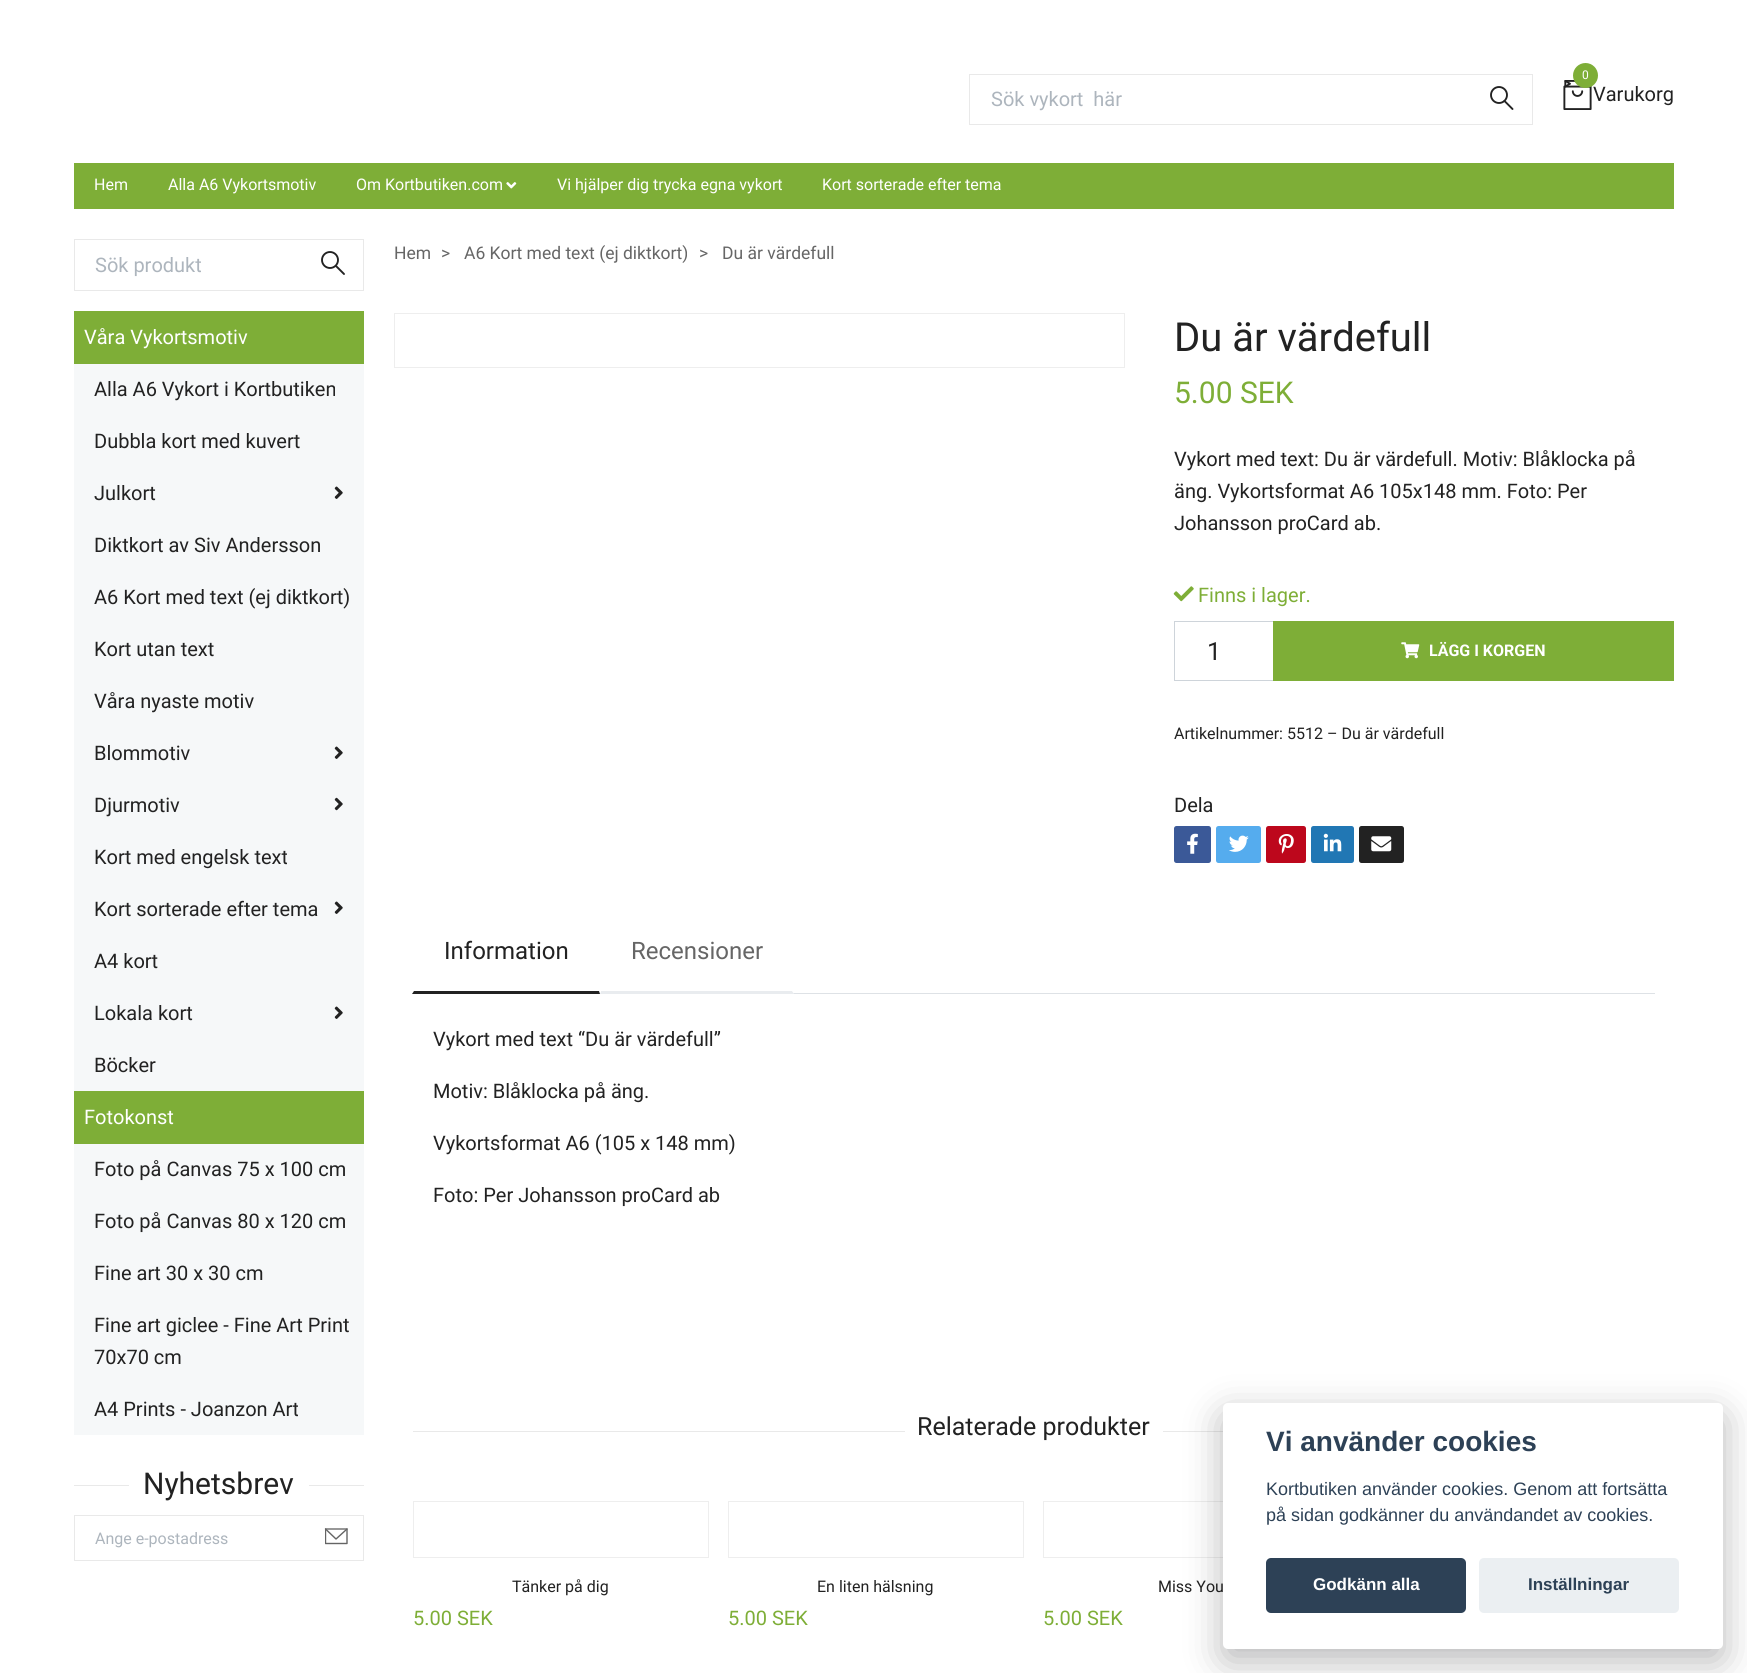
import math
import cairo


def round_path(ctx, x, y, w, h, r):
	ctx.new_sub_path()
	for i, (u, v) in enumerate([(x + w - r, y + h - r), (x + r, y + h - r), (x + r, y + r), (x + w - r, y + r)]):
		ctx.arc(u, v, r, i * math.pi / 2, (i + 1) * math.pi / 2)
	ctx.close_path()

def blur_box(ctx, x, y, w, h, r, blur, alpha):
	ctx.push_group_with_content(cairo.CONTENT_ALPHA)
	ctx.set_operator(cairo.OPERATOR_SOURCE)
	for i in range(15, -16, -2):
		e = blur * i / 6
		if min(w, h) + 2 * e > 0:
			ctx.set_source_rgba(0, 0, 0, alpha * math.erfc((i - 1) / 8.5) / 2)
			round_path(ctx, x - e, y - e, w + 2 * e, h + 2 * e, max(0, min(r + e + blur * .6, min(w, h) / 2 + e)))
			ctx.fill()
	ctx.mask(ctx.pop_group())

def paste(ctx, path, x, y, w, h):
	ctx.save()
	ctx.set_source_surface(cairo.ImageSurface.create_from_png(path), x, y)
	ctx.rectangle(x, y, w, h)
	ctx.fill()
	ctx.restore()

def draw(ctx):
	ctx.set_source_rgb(1, 1, 1)
	ctx.paint()
	ctx.rectangle(969.5, 74.5, 563, 50)
	ctx.set_source_rgb(0.914, 0.914, 0.914)
	ctx.set_line_width(1)
	ctx.stroke()
	ctx.select_font_face('Roboto')
	ctx.set_font_size(20)
	ctx.set_source_rgb(0.678, 0.71, 0.741)
	ctx.move_to(991, 106)
	ctx.show_text('Sök vykort  här')
	ctx.new_path()
	ctx.move_to(1504.5, 101)
	ctx.line_to(1512.5, 109)
	ctx.set_source_rgb(0.133, 0.133, 0.133)
	ctx.set_line_width(1.9)
	ctx.set_line_cap(cairo.LINE_CAP_ROUND)
	ctx.set_line_join(cairo.LINE_JOIN_ROUND)
	ctx.stroke()
	ctx.arc(1499, 95, 8, 0, 2 * math.pi)
	ctx.set_line_cap(cairo.LINE_CAP_BUTT)
	ctx.set_line_join(cairo.LINE_JOIN_MITER)
	ctx.stroke()
	paste(ctx, 'media/1.png', 1563, 80, 29, 30)
	ctx.move_to(1593, 101)
	ctx.show_text('Varukorg')
	ctx.set_source_rgb(0.494, 0.682, 0.216)
	ctx.new_path()
	ctx.arc(1585.5, 75.5, 12.5, 0, 2 * math.pi)
	ctx.fill()
	ctx.set_font_size(12)
	ctx.set_source_rgb(1, 1, 1)
	ctx.move_to(1582, 79)
	ctx.show_text('0')
	ctx.set_source_rgb(0.494, 0.682, 0.216)
	ctx.rectangle(74, 163, 1600, 46)
	ctx.fill()
	ctx.set_font_size(16)
	ctx.set_source_rgb(1, 1, 1)
	for x, y, s in [
		(94, 190, 'Hem'),
		(168, 190, 'Alla A6 Vykortsmotiv'),
		(356, 190, 'Om Kortbutiken.com'),
	]:
		ctx.move_to(x, y)
		ctx.show_text(s)
	paste(ctx, 'media/2.png', 506, 182, 11, 7)
	ctx.move_to(557, 190)
	ctx.show_text('Vi hjälper dig trycka egna vykort')
	ctx.move_to(822, 190)
	ctx.show_text('Kort sorterade efter tema')
	ctx.rectangle(74.5, 239.5, 289, 51)
	ctx.set_source_rgb(0.914, 0.914, 0.914)
	ctx.set_line_width(1)
	ctx.stroke()
	ctx.set_font_size(20)
	ctx.set_source_rgb(0.678, 0.71, 0.741)
	ctx.move_to(95, 272)
	ctx.show_text('Sök produkt')
	ctx.new_path()
	ctx.move_to(336, 266)
	ctx.line_to(344, 274)
	ctx.set_source_rgb(0.133, 0.133, 0.133)
	ctx.set_line_width(1.9)
	ctx.set_line_cap(cairo.LINE_CAP_ROUND)
	ctx.set_line_join(cairo.LINE_JOIN_ROUND)
	ctx.stroke()
	ctx.arc(330, 260, 8, 0, 2 * math.pi)
	ctx.set_line_cap(cairo.LINE_CAP_BUTT)
	ctx.set_line_join(cairo.LINE_JOIN_MITER)
	ctx.stroke()
	ctx.set_source_rgb(0.494, 0.682, 0.216)
	ctx.rectangle(74, 311, 290, 53)
	ctx.fill()
	ctx.set_source_rgb(1, 1, 1)
	ctx.move_to(84, 344)
	ctx.show_text('Våra Vykortsmotiv')
	ctx.set_source_rgb(0.961, 0.969, 0.976)
	ctx.rectangle(74, 364, 290, 727)
	ctx.fill()
	ctx.set_source_rgb(0.133, 0.133, 0.133)
	for x, y, s in [
		(94, 396, 'Alla A6 Vykort i Kortbutiken'),
		(94, 448, 'Dubbla kort med kuvert'),
		(94, 500, 'Julkort'),
	]:
		ctx.move_to(x, y)
		ctx.show_text(s)
	paste(ctx, 'media/3.png', 334, 486, 9, 13)
	for x, y, s in [
		(94, 552, 'Diktkort av Siv Andersson'),
		(94, 604, 'A6 Kort med text (ej diktkort)'),
		(94, 656, 'Kort utan text'),
		(94, 708, 'Våra nyaste motiv'),
		(94, 760, 'Blommotiv'),
	]:
		ctx.move_to(x, y)
		ctx.show_text(s)
	paste(ctx, 'media/3.png', 334, 746, 9, 13)
	ctx.move_to(94, 812)
	ctx.show_text('Djurmotiv')
	paste(ctx, 'media/4.png', 334, 797, 9, 14)
	ctx.move_to(94, 864)
	ctx.show_text('Kort med engelsk text')
	ctx.move_to(94, 916)
	ctx.show_text('Kort sorterade efter tema')
	paste(ctx, 'media/3.png', 334, 901, 9, 13)
	ctx.move_to(94, 968)
	ctx.show_text('A4 kort')
	ctx.move_to(94, 1020)
	ctx.show_text('Lokala kort')
	paste(ctx, 'media/3.png', 334, 1006, 9, 13)
	ctx.move_to(94, 1072)
	ctx.show_text('Böcker')
	ctx.set_source_rgb(0.494, 0.682, 0.216)
	ctx.rectangle(74, 1091, 290, 53)
	ctx.fill()
	ctx.set_source_rgb(1, 1, 1)
	ctx.move_to(84, 1124)
	ctx.show_text('Fotokonst')
	ctx.set_source_rgb(0.961, 0.969, 0.976)
	ctx.rectangle(74, 1144, 290, 291)
	ctx.fill()
	ctx.set_source_rgb(0.133, 0.133, 0.133)
	for x, y, s in [
		(94, 1176, 'Foto på Canvas 75 x 100 cm'),
		(94, 1228, 'Foto på Canvas 80 x 120 cm'),
		(94, 1280, 'Fine art 30 x 30 cm'),
		(94, 1332, 'Fine art giclee - Fine Art Print'),
		(94, 1364, '70x70 cm'),
		(94, 1416, 'A4 Prints - Joanzon Art'),
	]:
		ctx.move_to(x, y)
		ctx.show_text(s)
	ctx.set_source_rgb(0.914, 0.914, 0.914)
	ctx.rectangle(74, 1485, 290, 1)
	ctx.fill()
	ctx.set_source_rgb(1, 1, 1)
	ctx.rectangle(129, 1485, 180, 1)
	ctx.fill()
	ctx.set_font_size(30)
	ctx.set_source_rgb(0.133, 0.133, 0.133)
	ctx.move_to(143, 1494)
	ctx.show_text('Nyhetsbrev')
	ctx.rectangle(74.5, 1515.5, 289, 45)
	ctx.set_source_rgb(0.914, 0.914, 0.914)
	ctx.set_line_width(1)
	ctx.stroke()
	ctx.set_font_size(16)
	ctx.set_source_rgb(0.678, 0.71, 0.741)
	ctx.move_to(95, 1544)
	ctx.show_text('Ange e-postadress')
	ctx.new_path()
	ctx.move_to(325.5, 1529)
	ctx.line_to(336, 1539)
	ctx.line_to(347, 1529)
	ctx.set_source_rgb(0.392, 0.392, 0.392)
	ctx.set_line_width(1.4)
	ctx.set_line_cap(cairo.LINE_CAP_ROUND)
	ctx.set_line_join(cairo.LINE_JOIN_ROUND)
	ctx.stroke()
	ctx.save()
	ctx.rectangle(325, 1525, 23, 23)
	ctx.clip()
	ctx.new_path()
	ctx.move_to(325.5, 1529)
	ctx.line_to(347, 1529)
	ctx.line_to(347, 1543.5)
	ctx.line_to(325.5, 1543.5)
	ctx.close_path()
	ctx.stroke()
	ctx.restore()
	ctx.set_font_size(17.5)
	ctx.set_source_rgb(0.4, 0.4, 0.4)
	for x, y, s in [
		(394, 259, 'Hem'),
		(441, 259, '>'),
		(464, 259, 'A6 Kort med text (ej diktkort)'),
		(699, 259, '>'),
		(722, 259, 'Du är värdefull'),
	]:
		ctx.move_to(x, y)
		ctx.show_text(s)
	ctx.rectangle(394.5, 313.5, 730, 54)
	ctx.set_source_rgb(0.933, 0.933, 0.933)
	ctx.set_line_width(1)
	ctx.set_line_cap(cairo.LINE_CAP_BUTT)
	ctx.set_line_join(cairo.LINE_JOIN_MITER)
	ctx.stroke()
	ctx.set_font_size(40)
	ctx.set_source_rgb(0.133, 0.133, 0.133)
	ctx.move_to(1174, 351)
	ctx.show_text('Du är värdefull')
	ctx.set_font_size(30)
	ctx.set_source_rgb(0.494, 0.682, 0.216)
	ctx.move_to(1174, 403)
	ctx.show_text('5.00 SEK')
	ctx.set_font_size(20)
	ctx.set_source_rgb(0.133, 0.133, 0.133)
	for x, y, s in [
		(1174, 466, 'Vykort med text: Du är värdefull. Motiv: Blåklocka på'),
		(1174, 498, 'äng. Vykortsformat A6 105x148 mm. Foto: Per'),
		(1174, 530, 'Johansson proCard ab.'),
	]:
		ctx.move_to(x, y)
		ctx.show_text(s)
	paste(ctx, 'media/5.png', 1173, 586, 21, 16)
	ctx.set_source_rgb(0.494, 0.682, 0.216)
	ctx.move_to(1198, 602)
	ctx.show_text('Finns i lager.')
	ctx.rectangle(1174.5, 621.5, 99, 59)
	ctx.set_source_rgb(0.808, 0.831, 0.855)
	ctx.stroke()
	ctx.set_font_size(25)
	ctx.set_source_rgb(0.133, 0.133, 0.133)
	ctx.move_to(1207, 660)
	ctx.show_text('1')
	ctx.set_source_rgb(0.494, 0.682, 0.216)
	ctx.rectangle(1273, 621, 401, 60)
	ctx.fill()
	paste(ctx, 'media/6.png', 1401, 642, 19, 17)
	ctx.select_font_face('Roboto', cairo.FONT_SLANT_NORMAL, cairo.FONT_WEIGHT_BOLD)
	ctx.set_font_size(16)
	ctx.set_source_rgb(1, 1, 1)
	ctx.move_to(1429, 656)
	ctx.show_text('LÄGG I KORGEN')
	ctx.select_font_face('Roboto')
	ctx.set_source_rgb(0.133, 0.133, 0.133)
	ctx.move_to(1174, 739)
	ctx.show_text('Artikelnummer:')
	ctx.move_to(1287, 739)
	ctx.show_text('5512 – Du är värdefull')
	ctx.set_font_size(20)
	ctx.move_to(1174, 812)
	ctx.show_text('Dela')
	ctx.set_source_rgb(0.231, 0.349, 0.596)
	round_path(ctx, 1174, 826, 37, 37, 2.5)
	ctx.fill()
	paste(ctx, 'media/7.png', 1187, 833, 11, 21)
	ctx.set_source_rgb(0.333, 0.675, 0.933)
	round_path(ctx, 1216, 826, 45, 37, 2.5)
	ctx.fill()
	paste(ctx, 'media/8.png', 1229, 835, 20, 17)
	ctx.set_source_rgb(0.741, 0.031, 0.11)
	round_path(ctx, 1266, 826, 40, 37, 2.5)
	ctx.fill()
	paste(ctx, 'media/9.png', 1278, 834, 16, 20)
	ctx.set_source_rgb(0.129, 0.467, 0.706)
	round_path(ctx, 1311, 826, 43, 37, 2.5)
	ctx.fill()
	paste(ctx, 'media/10.png', 1323, 833, 19, 19)
	ctx.set_source_rgb(0.133, 0.133, 0.133)
	round_path(ctx, 1359, 826, 45, 37, 2.5)
	ctx.fill()
	paste(ctx, 'media/11.png', 1371, 836, 21, 16)
	ctx.set_source_rgb(0.871, 0.886, 0.902)
	ctx.rectangle(600, 993, 1055, 1)
	ctx.fill()
	ctx.set_source_rgb(0.133, 0.133, 0.133)
	ctx.new_path()
	ctx.move_to(600, 994)
	ctx.line_to(412, 994)
	ctx.line_to(414, 991)
	ctx.line_to(599, 991)
	ctx.close_path()
	ctx.fill()
	ctx.set_font_size(24)
	ctx.move_to(444, 959)
	ctx.show_text('Information')
	ctx.set_source_rgb(1, 1, 1)
	ctx.new_path()
	ctx.move_to(794, 911)
	ctx.line_to(794, 994)
	ctx.line_to(792, 991)
	ctx.line_to(792, 912)
	ctx.close_path()
	ctx.fill()
	ctx.set_source_rgb(0.914, 0.925, 0.937)
	ctx.new_path()
	ctx.move_to(794, 994)
	ctx.line_to(600, 994)
	ctx.line_to(601, 991)
	ctx.line_to(792, 991)
	ctx.close_path()
	ctx.fill()
	ctx.set_source_rgb(1, 1, 1)
	ctx.new_path()
	ctx.move_to(600, 994)
	ctx.line_to(600, 911)
	ctx.line_to(601, 912)
	ctx.line_to(601, 991)
	ctx.close_path()
	ctx.fill()
	ctx.set_source_rgb(0.4, 0.4, 0.4)
	ctx.move_to(631, 959)
	ctx.show_text('Recensioner')
	ctx.set_font_size(20)
	ctx.set_source_rgb(0.133, 0.133, 0.133)
	for x, y, s in [
		(433, 1046, 'Vykort med text “Du är värdefull”'),
		(433, 1098, 'Motiv: Blåklocka på äng.'),
		(433, 1150, 'Vykortsformat A6 (105 x 148 mm)'),
		(433, 1202, 'Foto: Per Johansson proCard ab'),
	]:
		ctx.move_to(x, y)
		ctx.show_text(s)
	ctx.set_source_rgb(0.914, 0.914, 0.914)
	ctx.rectangle(413, 1431, 810, 1)
	ctx.fill()
	ctx.set_source_rgb(1, 1, 1)
	ctx.rectangle(905, 1431, 258, 1)
	ctx.fill()
	ctx.set_font_size(25)
	ctx.set_source_rgb(0.133, 0.133, 0.133)
	ctx.move_to(917, 1435)
	ctx.show_text('Relaterade produkter')
	ctx.rectangle(413.5, 1501.5, 295, 56)
	ctx.set_source_rgb(0.933, 0.933, 0.933)
	ctx.stroke()
	ctx.set_font_size(16)
	ctx.set_source_rgb(0.133, 0.133, 0.133)
	ctx.move_to(512, 1592)
	ctx.show_text('Tänker på dig')
	ctx.set_font_size(20)
	ctx.set_source_rgb(0.494, 0.682, 0.216)
	ctx.move_to(413, 1625)
	ctx.show_text('5.00 SEK')
	ctx.rectangle(728.5, 1501.5, 295, 56)
	ctx.set_source_rgb(0.933, 0.933, 0.933)
	ctx.stroke()
	ctx.set_font_size(16)
	ctx.set_source_rgb(0.133, 0.133, 0.133)
	ctx.move_to(817, 1592)
	ctx.show_text('En liten hälsning')
	ctx.set_font_size(20)
	ctx.set_source_rgb(0.494, 0.682, 0.216)
	ctx.move_to(728, 1625)
	ctx.show_text('5.00 SEK')
	ctx.rectangle(1043.5, 1501.5, 295, 56)
	ctx.set_source_rgb(0.933, 0.933, 0.933)
	ctx.stroke()
	ctx.set_font_size(16)
	ctx.set_source_rgb(0.133, 0.133, 0.133)
	ctx.move_to(1158, 1592)
	ctx.show_text('Miss You')
	ctx.set_font_size(20)
	ctx.set_source_rgb(0.494, 0.682, 0.216)
	ctx.move_to(1043, 1625)
	ctx.show_text('5.00 SEK')
	ctx.set_source_rgb(0.008, 0.008, 0.012)
	blur_box(ctx, 1223, 1415, 500, 246, 5, 19, 0.28)
	ctx.set_source_rgb(1, 1, 1)
	round_path(ctx, 1223, 1403, 500, 246, 5)
	ctx.fill()
	ctx.select_font_face('Liberation Sans', cairo.FONT_SLANT_NORMAL, cairo.FONT_WEIGHT_BOLD)
	ctx.set_font_size(28)
	ctx.set_source_rgb(0.176, 0.255, 0.337)
	ctx.move_to(1266, 1451)
	ctx.show_text('Vi använder cookies')
	ctx.select_font_face('Liberation Sans')
	ctx.set_font_size(18)
	ctx.move_to(1266, 1495)
	ctx.show_text('Kortbutiken använder cookies. Genom att fortsätta')
	ctx.move_to(1266, 1521)
	ctx.show_text('på sidan godkänner du användandet av cookies.')
	round_path(ctx, 1266, 1558, 200, 55, 5)
	ctx.fill()
	ctx.select_font_face('Liberation Sans', cairo.FONT_SLANT_NORMAL, cairo.FONT_WEIGHT_BOLD)
	ctx.set_font_size(17)
	ctx.set_source_rgb(1, 1, 1)
	ctx.move_to(1313, 1590)
	ctx.show_text('Godkänn alla')
	ctx.set_source_rgb(0.918, 0.937, 0.949)
	round_path(ctx, 1479, 1558, 200, 55, 5)
	ctx.fill()
	ctx.set_source_rgb(0.176, 0.255, 0.337)
	ctx.move_to(1528, 1590)
	ctx.show_text('Inställningar')


surface = cairo.ImageSurface(cairo.FORMAT_RGB24, 1747, 1673)
ctx = cairo.Context(surface)
options = cairo.FontOptions()
options.set_hint_metrics(cairo.HINT_METRICS_OFF)
options.set_hint_style(cairo.HINT_STYLE_NONE)
ctx.set_font_options(options)
ctx.set_miter_limit(4)
draw(ctx)
surface.write_to_png('image.png')
